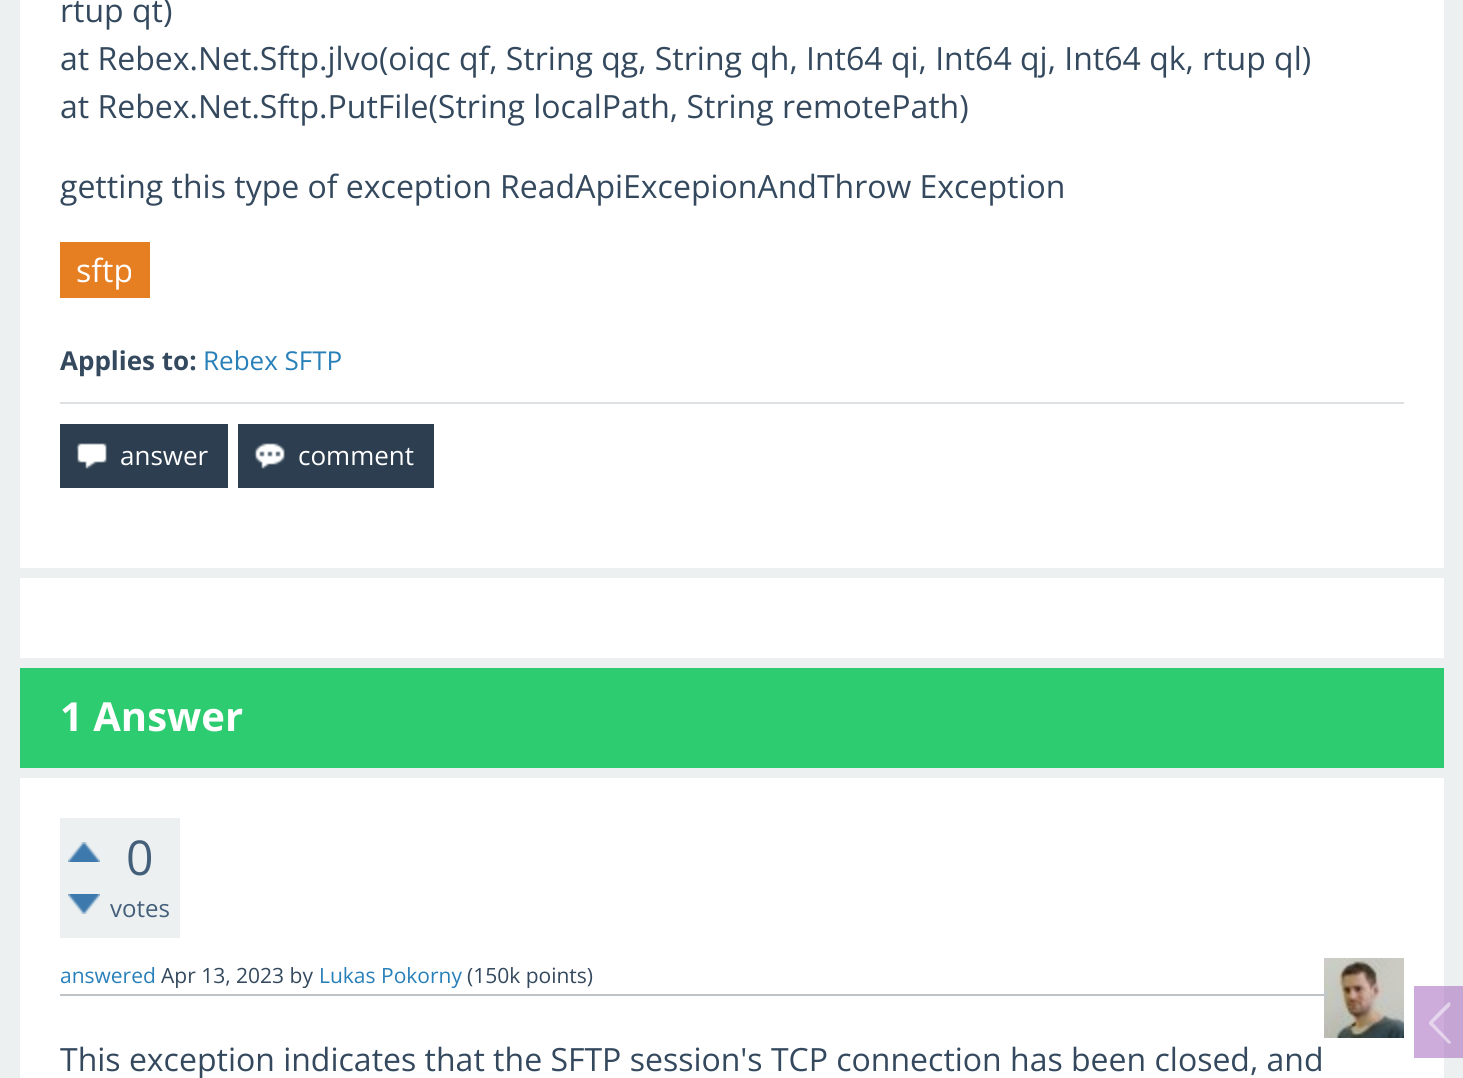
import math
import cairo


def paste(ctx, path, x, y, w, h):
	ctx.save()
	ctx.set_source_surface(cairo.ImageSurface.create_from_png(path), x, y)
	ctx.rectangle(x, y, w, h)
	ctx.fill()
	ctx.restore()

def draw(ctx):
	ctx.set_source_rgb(0.925, 0.941, 0.945)
	ctx.paint()
	ctx.set_source_rgb(0.769, 0.647, 0.831)
	ctx.rectangle(1444, 986, 19, 72)
	ctx.fill()
	ctx.set_source_rgb(1, 1, 1)
	ctx.rectangle(20, 0, 1424, 568)
	ctx.fill()
	ctx.select_font_face('Open Sans')
	ctx.set_font_size(32)
	ctx.set_source_rgb(0.204, 0.286, 0.369)
	for x, y, s in [
		(60, 22, 'rtup qt)'),
		(60, 70, 'at Rebex.Net.Sftp.jlvo(oiqc qf, String qg, String qh, Int64 qi, Int64 qj, Int64 qk, rtup ql)'),
		(60, 118, 'at Rebex.Net.Sftp.PutFile(String localPath, String remotePath)'),
		(60, 198, 'getting this type of exception ReadApiExcepionAndThrow Exception'),
	]:
		ctx.move_to(x, y)
		ctx.show_text(s)
	ctx.set_source_rgb(0.902, 0.494, 0.133)
	ctx.rectangle(60, 242, 90, 56)
	ctx.fill()
	ctx.set_source_rgb(1, 1, 1)
	ctx.move_to(76, 282)
	ctx.show_text('sftp')
	ctx.select_font_face('Open Sans', cairo.FONT_SLANT_NORMAL, cairo.FONT_WEIGHT_BOLD)
	ctx.set_font_size(26)
	ctx.set_source_rgb(0.204, 0.286, 0.369)
	ctx.move_to(60, 370)
	ctx.show_text('Applies to:')
	ctx.select_font_face('Open Sans')
	ctx.set_source_rgb(0.161, 0.502, 0.725)
	ctx.move_to(203, 370)
	ctx.show_text('Rebex SFTP')
	ctx.set_source_rgb(0.871, 0.882, 0.89)
	ctx.rectangle(60, 402, 1344, 2)
	ctx.fill()
	ctx.set_source_rgb(0.173, 0.243, 0.314)
	ctx.rectangle(60, 424, 168, 64)
	ctx.fill()
	paste(ctx, 'media/1.png', 76, 443, 31, 26)
	ctx.set_source_rgb(1, 1, 1)
	ctx.move_to(120, 465)
	ctx.show_text('answer')
	ctx.set_source_rgb(0.173, 0.243, 0.314)
	ctx.rectangle(238, 424, 196, 64)
	ctx.fill()
	paste(ctx, 'media/2.png', 254, 443, 31, 26)
	ctx.set_source_rgb(1, 1, 1)
	ctx.move_to(298, 465)
	ctx.show_text('comment')
	ctx.rectangle(20, 578, 1424, 80)
	ctx.fill()
	ctx.set_source_rgb(0.18, 0.8, 0.443)
	ctx.rectangle(20, 668, 1424, 100)
	ctx.fill()
	ctx.select_font_face('Open Sans', cairo.FONT_SLANT_NORMAL, cairo.FONT_WEIGHT_BOLD)
	ctx.set_font_size(40)
	ctx.set_source_rgb(1, 1, 1)
	ctx.move_to(60, 731)
	ctx.show_text('1 Answer')
	ctx.rectangle(20, 778, 1424, 300)
	ctx.fill()
	ctx.set_source_rgb(0.804, 0.675, 0.859)
	ctx.rectangle(1414, 986, 30, 72)
	ctx.fill()
	ctx.set_source_rgb(0.925, 0.941, 0.945)
	ctx.rectangle(60, 818, 120, 120)
	ctx.fill()
	paste(ctx, 'media/3.png', 68, 842, 32, 20)
	paste(ctx, 'media/4.png', 68, 894, 32, 20)
	ctx.select_font_face('Open Sans')
	ctx.set_font_size(48)
	ctx.set_source_rgb(0.267, 0.373, 0.478)
	ctx.move_to(126, 875)
	ctx.show_text('0')
	ctx.set_font_size(24)
	ctx.move_to(110, 917)
	ctx.show_text('votes')
	ctx.set_source_rgb(0.741, 0.765, 0.78)
	ctx.rectangle(60, 994, 1264, 2)
	ctx.fill()
	ctx.set_font_size(21)
	ctx.set_source_rgb(0.161, 0.502, 0.725)
	ctx.move_to(60, 983)
	ctx.show_text('answered')
	ctx.set_source_rgb(0.204, 0.286, 0.369)
	ctx.move_to(161, 983)
	ctx.show_text('Apr 13, 2023 by')
	ctx.set_source_rgb(0.161, 0.502, 0.725)
	ctx.move_to(319, 983)
	ctx.show_text('Lukas Pokorny')
	ctx.set_source_rgb(0.204, 0.286, 0.369)
	ctx.move_to(467, 983)
	ctx.show_text('(150k points)')
	paste(ctx, 'media/5.png', 1324, 958, 80, 80)
	ctx.set_font_size(32)
	ctx.move_to(60, 1071)
	ctx.show_text('This exception indicates that the SFTP session\'s TCP connection has been closed, and')
	ctx.set_source_rgba(1, 1, 1, 0.5)
	ctx.new_path()
	ctx.move_to(1450, 1041)
	ctx.line_to(1451, 1042)
	ctx.curve_to(1450, 1047, 1445, 1040, 1445, 1040)
	ctx.line_to(1429, 1024)
	ctx.line_to(1429, 1022)
	ctx.curve_to(1431, 1020, 1448, 1002, 1449, 1002)
	ctx.curve_to(1454, 1004, 1445, 1011, 1445, 1011)
	ctx.line_to(1433, 1023)
	ctx.close_path()
	ctx.fill()


surface = cairo.ImageSurface(cairo.FORMAT_RGB24, 1463, 1078)
ctx = cairo.Context(surface)
options = cairo.FontOptions()
options.set_hint_metrics(cairo.HINT_METRICS_OFF)
options.set_hint_style(cairo.HINT_STYLE_NONE)
ctx.set_font_options(options)
ctx.set_miter_limit(4)
draw(ctx)
surface.write_to_png('image.png')
